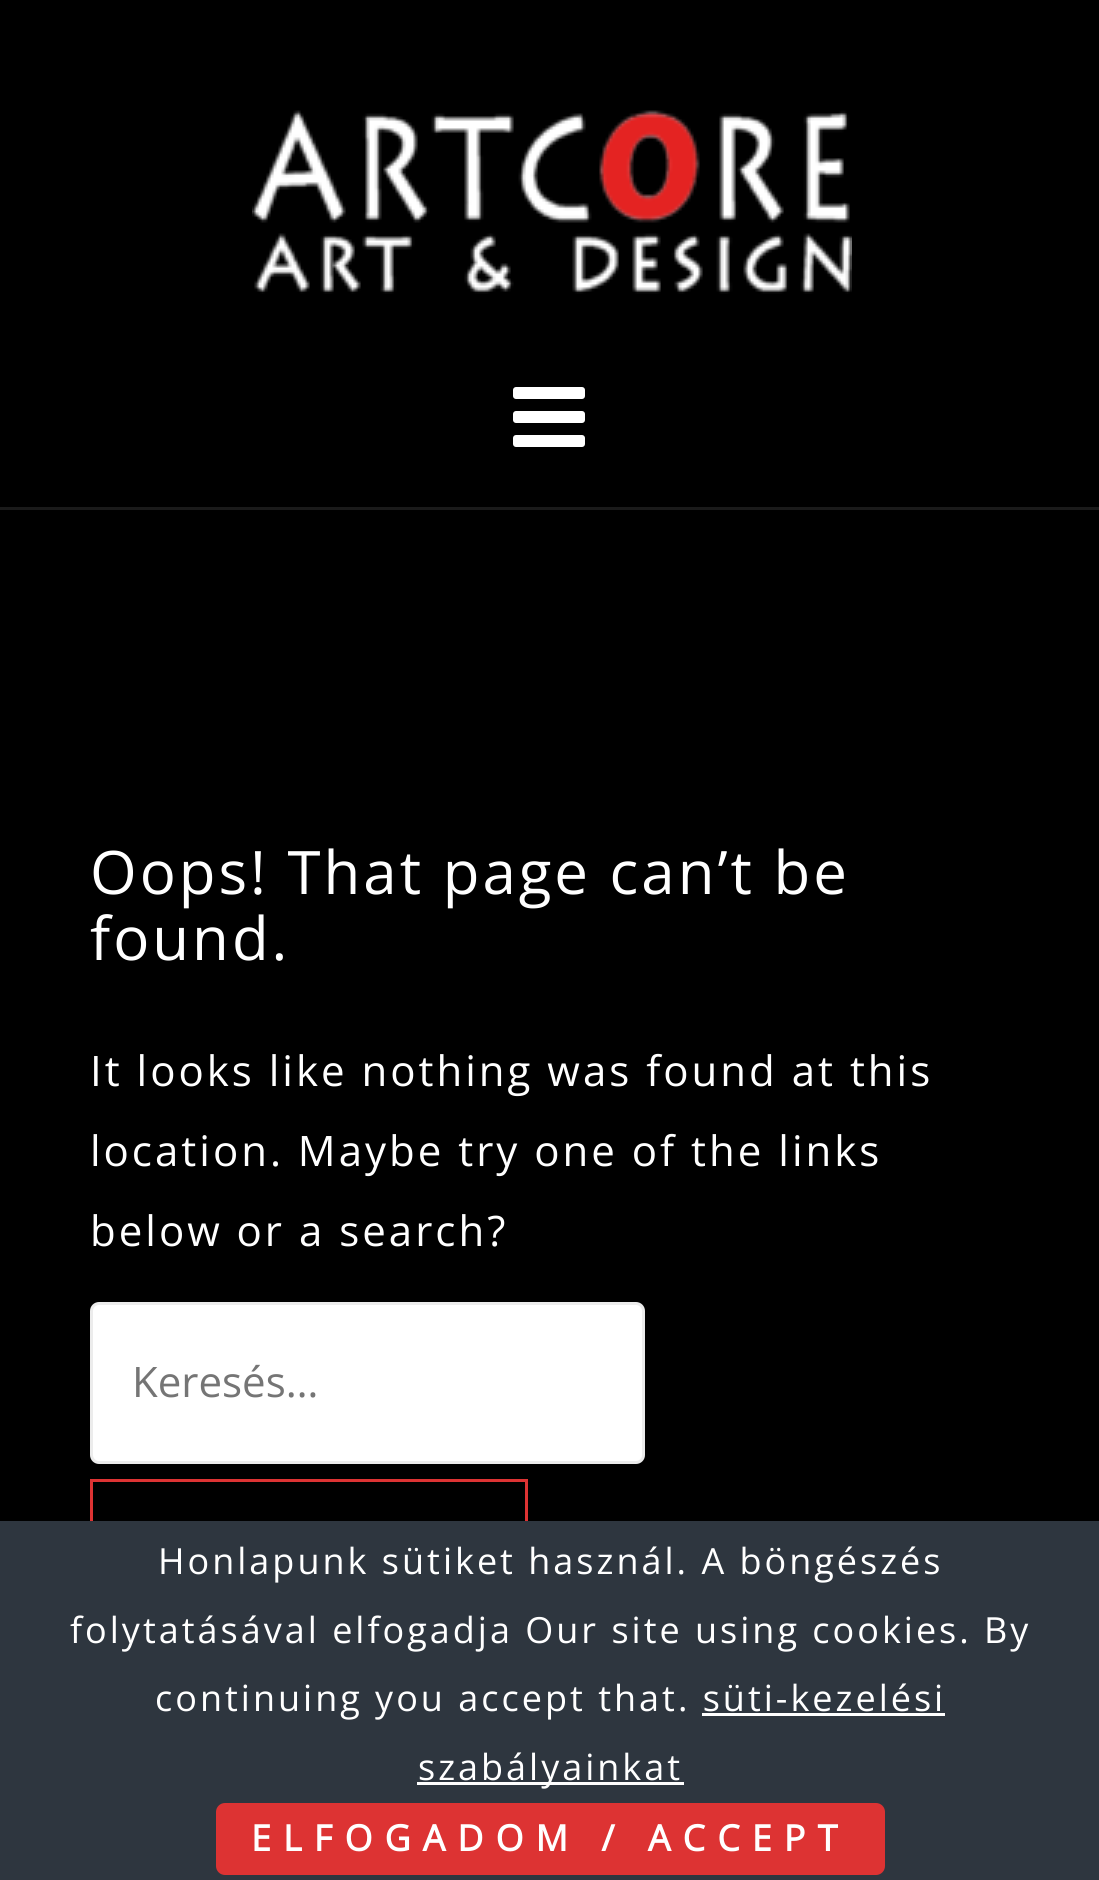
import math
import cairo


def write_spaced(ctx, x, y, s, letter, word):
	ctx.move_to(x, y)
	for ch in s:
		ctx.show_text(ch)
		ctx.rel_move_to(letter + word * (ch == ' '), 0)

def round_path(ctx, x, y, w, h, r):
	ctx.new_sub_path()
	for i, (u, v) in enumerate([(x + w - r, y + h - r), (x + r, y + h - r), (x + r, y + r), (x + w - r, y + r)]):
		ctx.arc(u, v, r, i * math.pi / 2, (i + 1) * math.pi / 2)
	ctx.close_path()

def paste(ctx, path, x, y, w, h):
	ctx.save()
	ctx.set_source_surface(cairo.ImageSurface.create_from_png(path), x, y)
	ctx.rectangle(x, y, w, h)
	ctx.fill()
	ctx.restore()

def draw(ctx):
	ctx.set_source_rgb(0, 0, 0)
	ctx.paint()
	ctx.set_source_rgb(0.102, 0.102, 0.102)
	ctx.rectangle(0, 507, 1099, 3)
	ctx.fill()
	paste(ctx, 'media/1.png', 252, 110, 600, 184)
	paste(ctx, 'media/2.png', 513, 387, 72, 60)
	ctx.select_font_face('Open Sans')
	ctx.set_font_size(60)
	ctx.set_source_rgb(1, 1, 1)
	write_spaced(ctx, 90, 894, 'Oops! That page can’t be', 3, 0)
	write_spaced(ctx, 90, 960, 'found.', 3, 0)
	ctx.set_font_size(42)
	for x, y, s in [
		(90, 1086, 'It looks like nothing was found at this'),
		(90, 1166, 'location. Maybe try one of the links'),
		(90, 1246, 'below or a search?'),
	]:
		write_spaced(ctx, x, y, s, 3, 0)
	round_path(ctx, 91.5, 1303.5, 552, 159, 7.5)
	ctx.fill_preserve()
	ctx.set_source_rgb(0.922, 0.922, 0.922)
	ctx.set_line_width(3)
	ctx.stroke()
	ctx.set_source_rgb(0.459, 0.459, 0.459)
	ctx.move_to(132, 1397)
	ctx.show_text('Keresés…')
	ctx.rectangle(91.5, 1480.5, 435, 156)
	ctx.set_source_rgb(0.867, 0.2, 0.2)
	ctx.stroke()
	ctx.set_source_rgb(0.18, 0.212, 0.247)
	ctx.rectangle(0, 1521, 1099, 359)
	ctx.fill()
	ctx.set_font_size(36)
	ctx.set_source_rgb(1, 1, 1)
	for x, y, s in [
		(158, 1574, 'Honlapunk sütiket használ. A böngészés'),
		(70, 1643, 'folytatásával elfogadja Our site using cookies. By'),
		(155, 1711, 'continuing you accept that. süti-kezelési'),
	]:
		write_spaced(ctx, x, y, s, 3, 0)
	ctx.rectangle(417, 1782, 267, 3)
	ctx.fill()
	write_spaced(ctx, 418, 1780, 'szabályainkat', 3, 0)
	ctx.rectangle(702, 1713, 243, 3)
	ctx.fill()
	ctx.set_source_rgb(0.867, 0.2, 0.2)
	round_path(ctx, 216, 1803, 669, 72, 9)
	ctx.fill()
	ctx.select_font_face('Open Sans', cairo.FONT_SLANT_NORMAL, cairo.FONT_WEIGHT_BOLD)
	ctx.set_source_rgb(1, 1, 1)
	write_spaced(ctx, 251, 1851, 'ELFOGADOM / ACCEPT', 12, 0)


surface = cairo.ImageSurface(cairo.FORMAT_RGB24, 1099, 1880)
ctx = cairo.Context(surface)
options = cairo.FontOptions()
options.set_hint_metrics(cairo.HINT_METRICS_OFF)
options.set_hint_style(cairo.HINT_STYLE_NONE)
ctx.set_font_options(options)
ctx.set_miter_limit(4)
draw(ctx)
surface.write_to_png('image.png')
